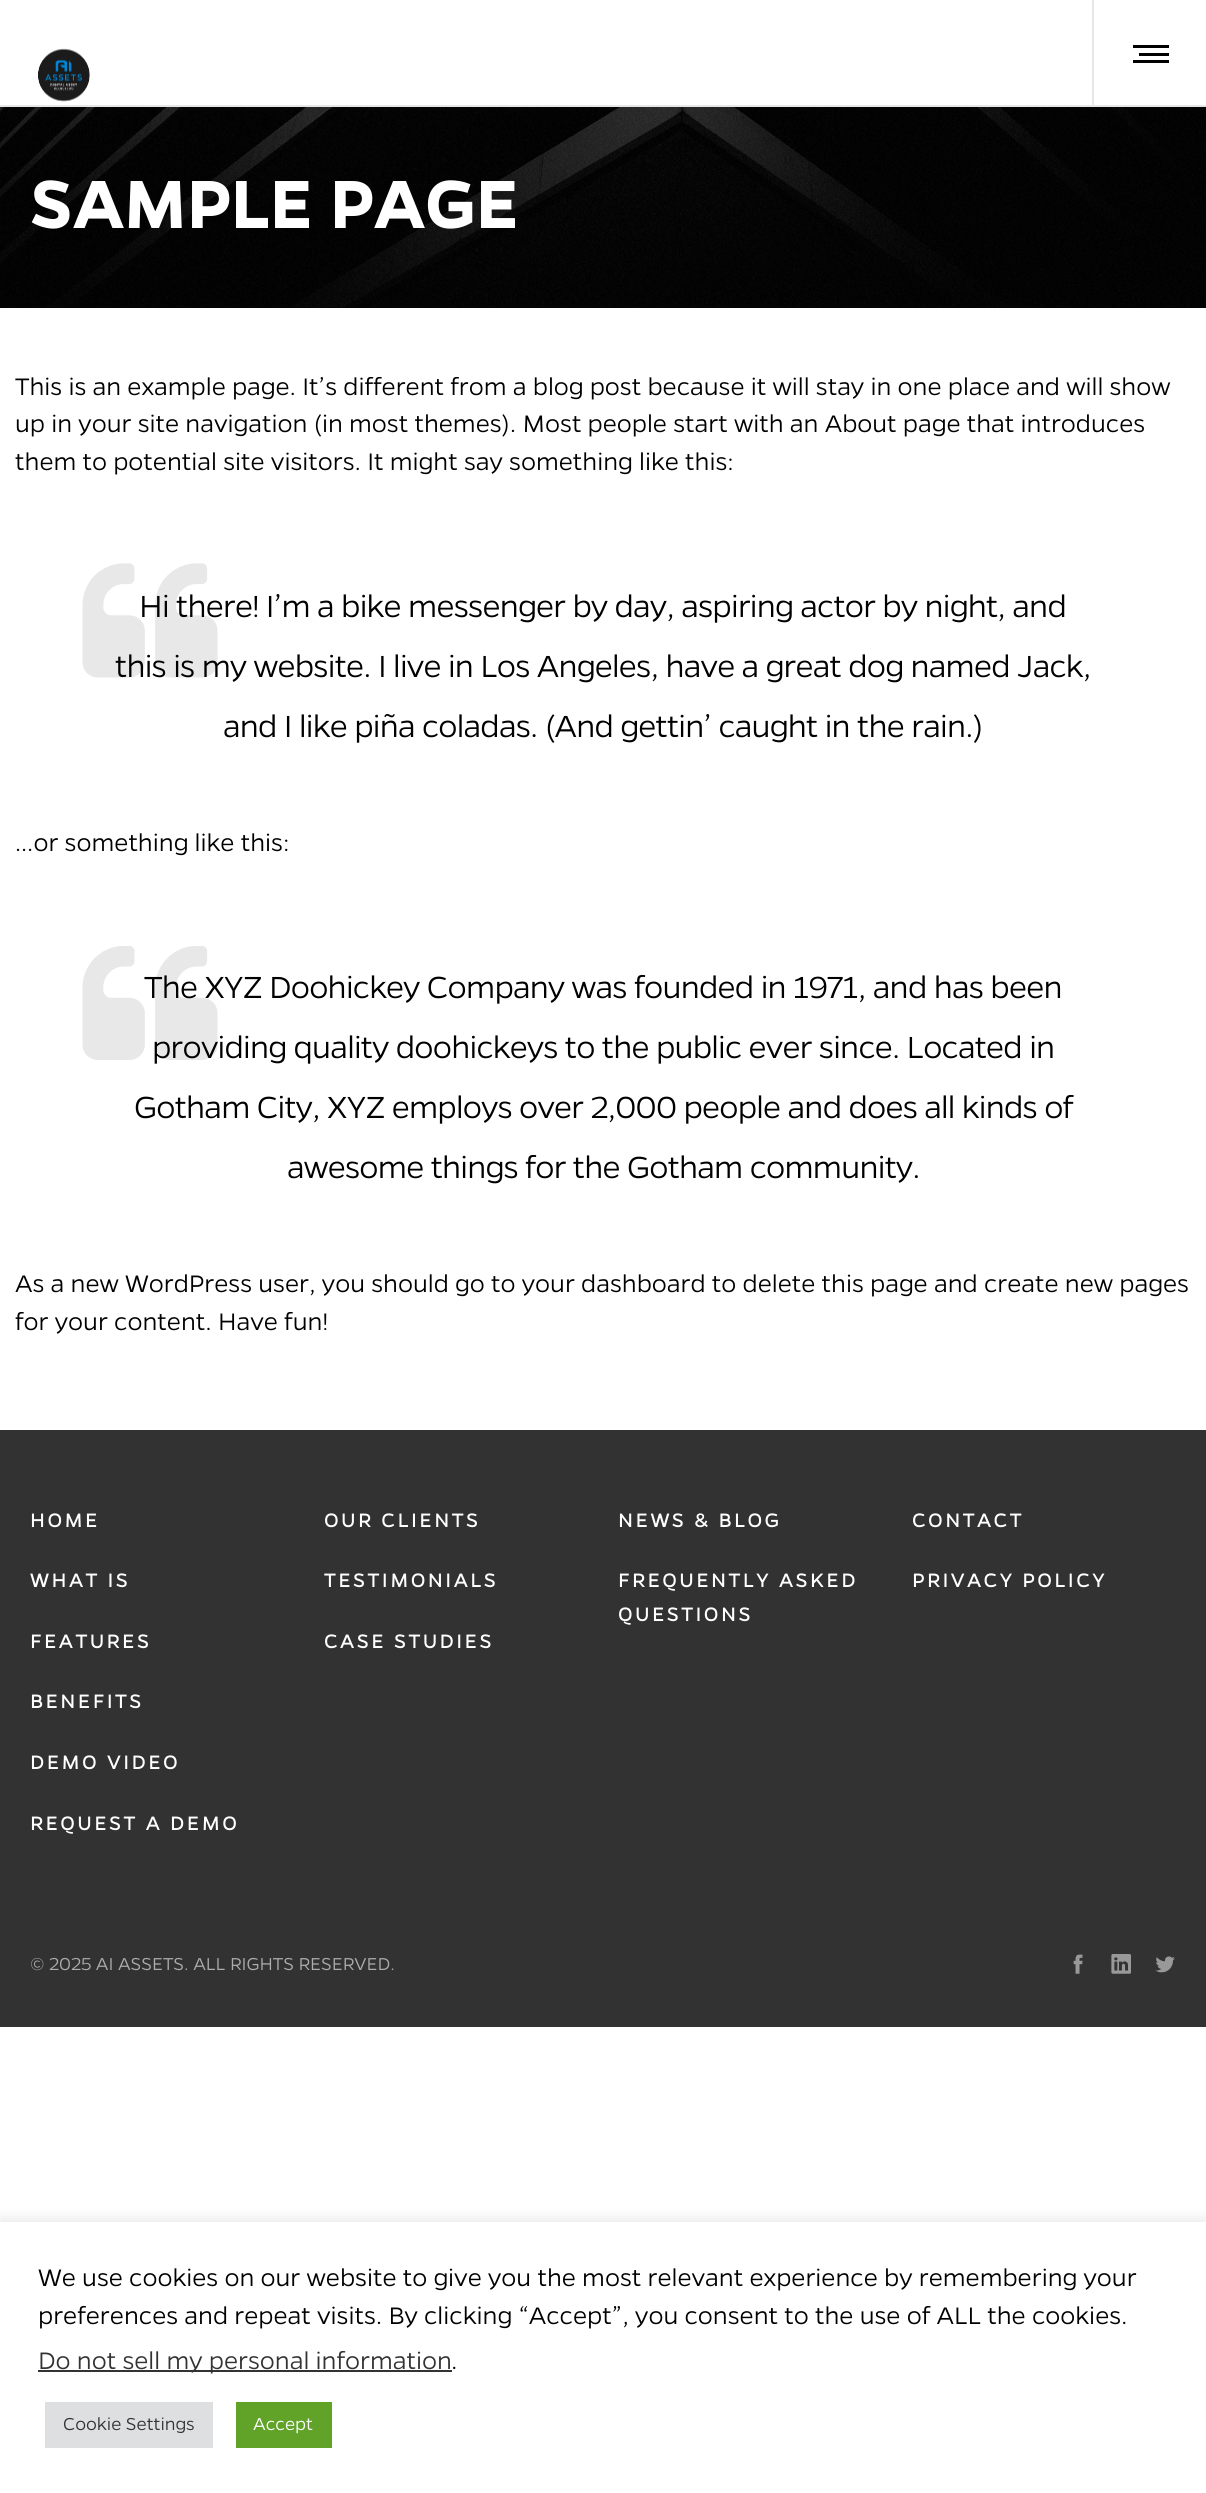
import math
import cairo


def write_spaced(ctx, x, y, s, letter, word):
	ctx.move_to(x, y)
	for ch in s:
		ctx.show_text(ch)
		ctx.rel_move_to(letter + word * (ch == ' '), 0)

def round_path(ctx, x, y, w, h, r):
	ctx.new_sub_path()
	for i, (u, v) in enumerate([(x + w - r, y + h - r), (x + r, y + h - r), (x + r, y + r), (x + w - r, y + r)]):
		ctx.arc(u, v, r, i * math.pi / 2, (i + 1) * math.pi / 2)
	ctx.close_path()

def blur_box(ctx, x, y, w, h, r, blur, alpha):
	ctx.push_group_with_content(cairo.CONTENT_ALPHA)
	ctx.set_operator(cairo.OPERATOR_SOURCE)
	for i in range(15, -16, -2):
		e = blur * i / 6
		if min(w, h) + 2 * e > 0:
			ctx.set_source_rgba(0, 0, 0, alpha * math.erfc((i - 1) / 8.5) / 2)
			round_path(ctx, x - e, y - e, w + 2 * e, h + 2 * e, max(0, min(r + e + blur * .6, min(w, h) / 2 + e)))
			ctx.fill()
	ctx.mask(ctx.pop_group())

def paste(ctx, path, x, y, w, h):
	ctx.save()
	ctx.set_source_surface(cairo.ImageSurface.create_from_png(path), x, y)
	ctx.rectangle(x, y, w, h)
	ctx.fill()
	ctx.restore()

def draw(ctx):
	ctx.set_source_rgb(1, 1, 1)
	ctx.paint()
	ctx.set_source_rgb(0.906, 0.906, 0.906)
	ctx.rectangle(0, 105, 1206, 2)
	ctx.fill()
	paste(ctx, 'media/1.png', 38, 48, 52, 54)
	ctx.rectangle(1092, 0, 2, 105)
	ctx.fill()
	ctx.set_source_rgb(0, 0, 0)
	ctx.rectangle(1133, 45, 36, 3)
	ctx.rectangle(1139, 53, 30, 3)
	ctx.rectangle(1133, 60, 36, 3)
	ctx.rectangle(0, 307, 1206, 1)
	ctx.fill()
	paste(ctx, 'media/2.png', 0, 107, 1206, 201)
	ctx.set_source_rgba(0.106, 0.106, 0.106, 0.1)
	ctx.rectangle(0, 306, 1206, 2)
	ctx.fill()
	ctx.select_font_face('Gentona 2', cairo.FONT_SLANT_NORMAL, cairo.FONT_WEIGHT_BOLD)
	ctx.set_font_size(73.5)
	ctx.set_source_rgb(1, 1, 1)
	write_spaced(ctx, 30, 228, 'SAMPLE PAGE', 1.5, 0)
	ctx.select_font_face('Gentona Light')
	ctx.set_font_size(27)
	ctx.set_source_rgb(0, 0, 0)
	for x, y, s in [
		(15, 395, 'This is an example page. It’s different from a blog post because it will stay in one place and will show'),
		(15, 432, 'up in your site navigation (in most themes). Most people start with an About page that introduces'),
		(15, 470, 'them to potential site visitors. It might say something like this:'),
	]:
		ctx.move_to(x, y)
		ctx.show_text(s)
	paste(ctx, 'media/3.png', 82, 563, 136, 115)
	ctx.set_font_size(34.5)
	for x, y, s in [
		(139, 617, 'Hi there! I’m a bike messenger by day, aspiring actor by night, and'),
		(115, 677, 'this is my website. I live in Los Angeles, have a great dog named Jack,'),
		(223, 737, 'and I like piña coladas. (And gettin’ caught in the rain.)'),
	]:
		write_spaced(ctx, x, y, s, -0.75, 0)
	ctx.set_font_size(27)
	ctx.move_to(15, 851)
	ctx.show_text('…or something like this:')
	paste(ctx, 'media/4.png', 82, 946, 136, 114)
	ctx.set_font_size(34.5)
	for x, y, s in [
		(144, 998, 'The XYZ Doohickey Company was founded in 1971, and has been'),
		(152, 1058, 'providing quality doohickeys to the public ever since. Located in'),
		(134, 1118, 'Gotham City, XYZ employs over 2,000 people and does all kinds of'),
		(287, 1178, 'awesome things for the Gotham community.'),
	]:
		write_spaced(ctx, x, y, s, -0.75, 0)
	ctx.set_font_size(27)
	ctx.move_to(15, 1292)
	ctx.show_text('As a new WordPress user, you should go to your dashboard to delete this page and create new pages')
	ctx.move_to(15, 1330)
	ctx.show_text('for your content. Have fun!')
	ctx.set_source_rgb(0.196, 0.196, 0.196)
	ctx.rectangle(0, 1430, 1206, 597)
	ctx.fill()
	ctx.select_font_face('Gentona', cairo.FONT_SLANT_NORMAL, cairo.FONT_WEIGHT_BOLD)
	ctx.set_font_size(21)
	ctx.set_source_rgb(1, 1, 1)
	for x, y, s in [
		(30, 1527, 'HOME'),
		(30, 1587, 'WHAT IS'),
		(30, 1648, 'FEATURES'),
		(30, 1708, 'BENEFITS'),
		(30, 1769, 'DEMO VIDEO'),
		(30, 1830, 'REQUEST A DEMO'),
		(324, 1527, 'OUR CLIENTS'),
		(324, 1587, 'TESTIMONIALS'),
		(324, 1648, 'CASE STUDIES'),
		(618, 1527, 'NEWS & BLOG'),
		(618, 1587, 'FREQUENTLY ASKED'),
		(618, 1621, 'QUESTIONS'),
		(912, 1527, 'CONTACT'),
		(912, 1587, 'PRIVACY POLICY'),
	]:
		write_spaced(ctx, x, y, s, 3, 0)
	ctx.select_font_face('Gentona Light')
	ctx.set_font_size(19.5)
	ctx.set_source_rgb(0.678, 0.678, 0.678)
	ctx.move_to(30, 1970)
	ctx.show_text('© 2025 AI ASSETS. ALL RIGHTS RESERVED.')
	paste(ctx, 'media/5.png', 1073, 1954, 10, 20)
	paste(ctx, 'media/6.png', 1111, 1954, 20, 20)
	paste(ctx, 'media/7.png', 1155, 1956, 20, 17)
	ctx.save()
	ctx.rectangle(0, 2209, 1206, 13)
	ctx.clip()
	ctx.set_source_rgb(0.675, 0.671, 0.671)
	blur_box(ctx, 0, 2220, 1206, 272, 0, 7.5, 0.3)
	ctx.restore()
	ctx.set_font_size(27)
	ctx.set_source_rgb(0, 0, 0)
	ctx.move_to(38, 2286)
	ctx.show_text('We use cookies on our website to give you the most relevant experience by remembering your')
	ctx.move_to(38, 2324)
	ctx.show_text('preferences and repeat visits. By clicking “Accept”, you consent to the use of ALL the cookies.')
	ctx.set_source_rgb(0.2, 0.2, 0.2)
	ctx.rectangle(38, 2370, 414, 2)
	ctx.fill()
	ctx.move_to(38, 2369)
	ctx.show_text('Do not sell my personal information')
	ctx.set_source_rgb(0, 0, 0)
	ctx.move_to(451, 2369)
	ctx.show_text('.')
	ctx.set_source_rgb(0.871, 0.875, 0.878)
	ctx.rectangle(45, 2402, 168, 46)
	ctx.fill()
	ctx.set_font_size(19.5)
	ctx.set_source_rgb(0.2, 0.2, 0.2)
	ctx.move_to(63, 2430)
	ctx.show_text('Cookie Settings')
	ctx.set_source_rgb(0.38, 0.635, 0.161)
	ctx.rectangle(236, 2402, 96, 46)
	ctx.fill()
	ctx.set_source_rgb(1, 1, 1)
	ctx.move_to(253, 2430)
	ctx.show_text('Accept')


surface = cairo.ImageSurface(cairo.FORMAT_RGB24, 1206, 2493)
ctx = cairo.Context(surface)
options = cairo.FontOptions()
options.set_hint_metrics(cairo.HINT_METRICS_OFF)
options.set_hint_style(cairo.HINT_STYLE_NONE)
ctx.set_font_options(options)
ctx.set_miter_limit(4)
draw(ctx)
surface.write_to_png('image.png')
